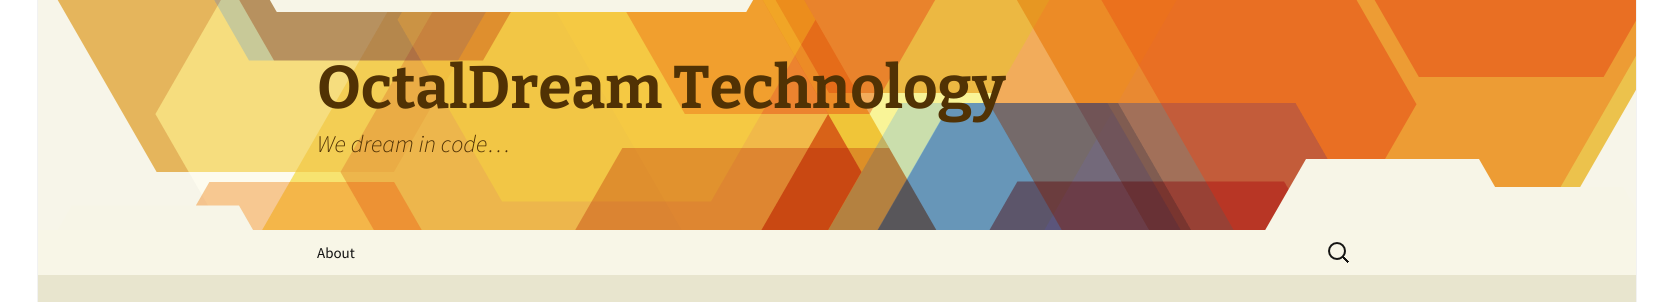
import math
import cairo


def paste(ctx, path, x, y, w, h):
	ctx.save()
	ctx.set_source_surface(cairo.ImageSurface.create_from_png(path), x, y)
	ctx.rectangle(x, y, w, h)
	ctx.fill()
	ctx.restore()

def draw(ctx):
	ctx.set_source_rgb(1, 1, 1)
	ctx.paint()
	ctx.set_source_rgb(0.949, 0.949, 0.949)
	ctx.rectangle(1636, 0, 1, 302)
	ctx.fill()
	ctx.rectangle(37, 0, 1, 302)
	ctx.fill()
	paste(ctx, 'media/1.png', 38, 0, 1598, 230)
	ctx.select_font_face('Bitter Thin')
	ctx.set_font_size(60)
	ctx.set_source_rgb(0.318, 0.196, 0.016)
	ctx.move_to(317, 108)
	ctx.show_text('OctalDream Technology')
	ctx.select_font_face('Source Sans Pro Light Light', cairo.FONT_SLANT_ITALIC)
	ctx.set_font_size(24)
	ctx.move_to(317, 152)
	ctx.show_text('We dream in code…')
	ctx.set_source_rgb(0.969, 0.961, 0.906)
	ctx.rectangle(38, 230, 1598, 45)
	ctx.fill()
	ctx.select_font_face('Source Sans Pro')
	ctx.set_font_size(15)
	ctx.set_source_rgb(0.078, 0.078, 0.071)
	ctx.move_to(317, 258)
	ctx.show_text('About')
	paste(ctx, 'media/2.png', 1328, 242, 21, 21)
	ctx.set_source_rgb(0.91, 0.898, 0.808)
	ctx.rectangle(38, 275, 1598, 27)
	ctx.fill()


surface = cairo.ImageSurface(cairo.FORMAT_RGB24, 1673, 302)
ctx = cairo.Context(surface)
options = cairo.FontOptions()
options.set_hint_metrics(cairo.HINT_METRICS_OFF)
options.set_hint_style(cairo.HINT_STYLE_NONE)
ctx.set_font_options(options)
ctx.set_miter_limit(4)
draw(ctx)
surface.write_to_png('image.png')
